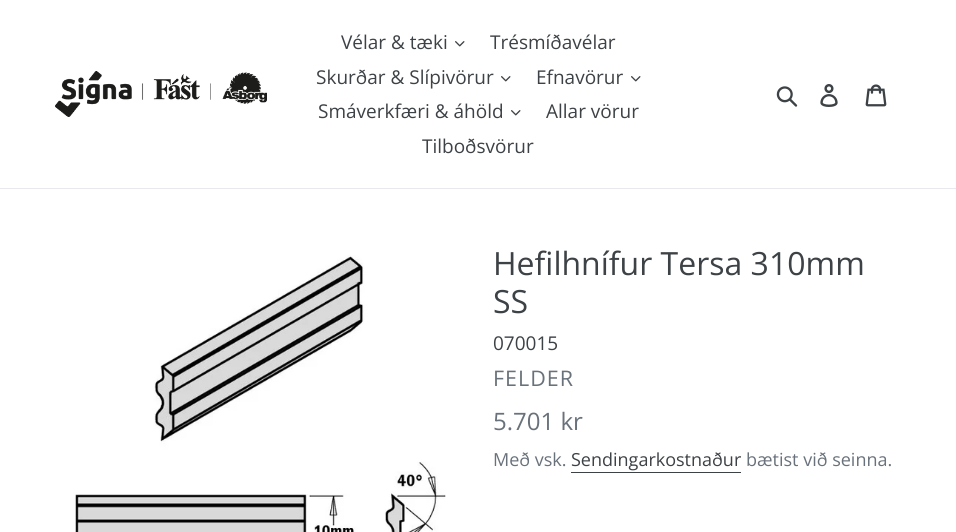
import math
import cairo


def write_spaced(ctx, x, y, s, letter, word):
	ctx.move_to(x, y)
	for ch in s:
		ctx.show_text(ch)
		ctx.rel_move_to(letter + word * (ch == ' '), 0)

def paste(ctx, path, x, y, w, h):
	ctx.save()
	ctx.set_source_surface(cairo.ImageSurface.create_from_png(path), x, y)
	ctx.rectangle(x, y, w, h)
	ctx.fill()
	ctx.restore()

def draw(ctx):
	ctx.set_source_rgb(1, 1, 1)
	ctx.paint()
	ctx.set_source_rgb(0.91, 0.914, 0.922)
	ctx.rectangle(0, 188, 956, 1)
	ctx.fill()
	paste(ctx, 'media/1.png', 55, 71, 212, 46)
	ctx.select_font_face('Open Sans')
	ctx.set_font_size(19)
	ctx.set_source_rgb(0.239, 0.259, 0.275)
	ctx.move_to(341, 49)
	ctx.show_text('Vélar & tæki')
	paste(ctx, 'media/2.png', 455, 41, 10, 6)
	ctx.move_to(490, 49)
	ctx.show_text('Trésmíðavélar')
	ctx.move_to(316, 84)
	ctx.show_text('Skurðar & Slípivörur')
	paste(ctx, 'media/2.png', 501, 76, 10, 6)
	ctx.move_to(536, 84)
	ctx.show_text('Efnavörur')
	paste(ctx, 'media/2.png', 631, 76, 10, 6)
	ctx.move_to(318, 118)
	ctx.show_text('Smáverkfæri & áhöld')
	paste(ctx, 'media/2.png', 511, 110, 10, 6)
	ctx.move_to(546, 118)
	ctx.show_text('Allar vörur')
	ctx.move_to(422, 153)
	ctx.show_text('Tilboðsvörur')
	paste(ctx, 'media/3.png', 776, 86, 22, 21)
	paste(ctx, 'media/4.png', 820, 84, 18, 23)
	paste(ctx, 'media/5.png', 865, 84, 22, 23)
	paste(ctx, 'media/6.png', 75, 255, 371, 277)
	ctx.set_font_size(32)
	ctx.move_to(493, 275)
	ctx.show_text('Hefilhnífur Tersa 310mm')
	ctx.move_to(493, 313)
	ctx.show_text('SS')
	ctx.set_font_size(19)
	ctx.move_to(493, 350)
	ctx.show_text('070015')
	ctx.set_font_size(21.5)
	ctx.set_source_rgb(0.412, 0.447, 0.482)
	write_spaced(ctx, 493, 386, 'FELDER', 1, 0)
	ctx.set_font_size(24)
	ctx.move_to(493, 430)
	ctx.show_text('5.701 kr')
	ctx.set_font_size(18)
	ctx.move_to(493, 466)
	ctx.show_text('Með vsk.')
	ctx.set_source_rgb(0.239, 0.259, 0.275)
	ctx.move_to(571, 466)
	ctx.show_text('Sendingarkostnaður')
	ctx.rectangle(571, 472, 170, 1)
	ctx.fill()
	ctx.set_source_rgb(0.412, 0.447, 0.482)
	ctx.move_to(746, 466)
	ctx.show_text('bætist við seinna.')


surface = cairo.ImageSurface(cairo.FORMAT_RGB24, 956, 532)
ctx = cairo.Context(surface)
options = cairo.FontOptions()
options.set_hint_metrics(cairo.HINT_METRICS_OFF)
options.set_hint_style(cairo.HINT_STYLE_NONE)
ctx.set_font_options(options)
ctx.set_miter_limit(4)
draw(ctx)
surface.write_to_png('image.png')
